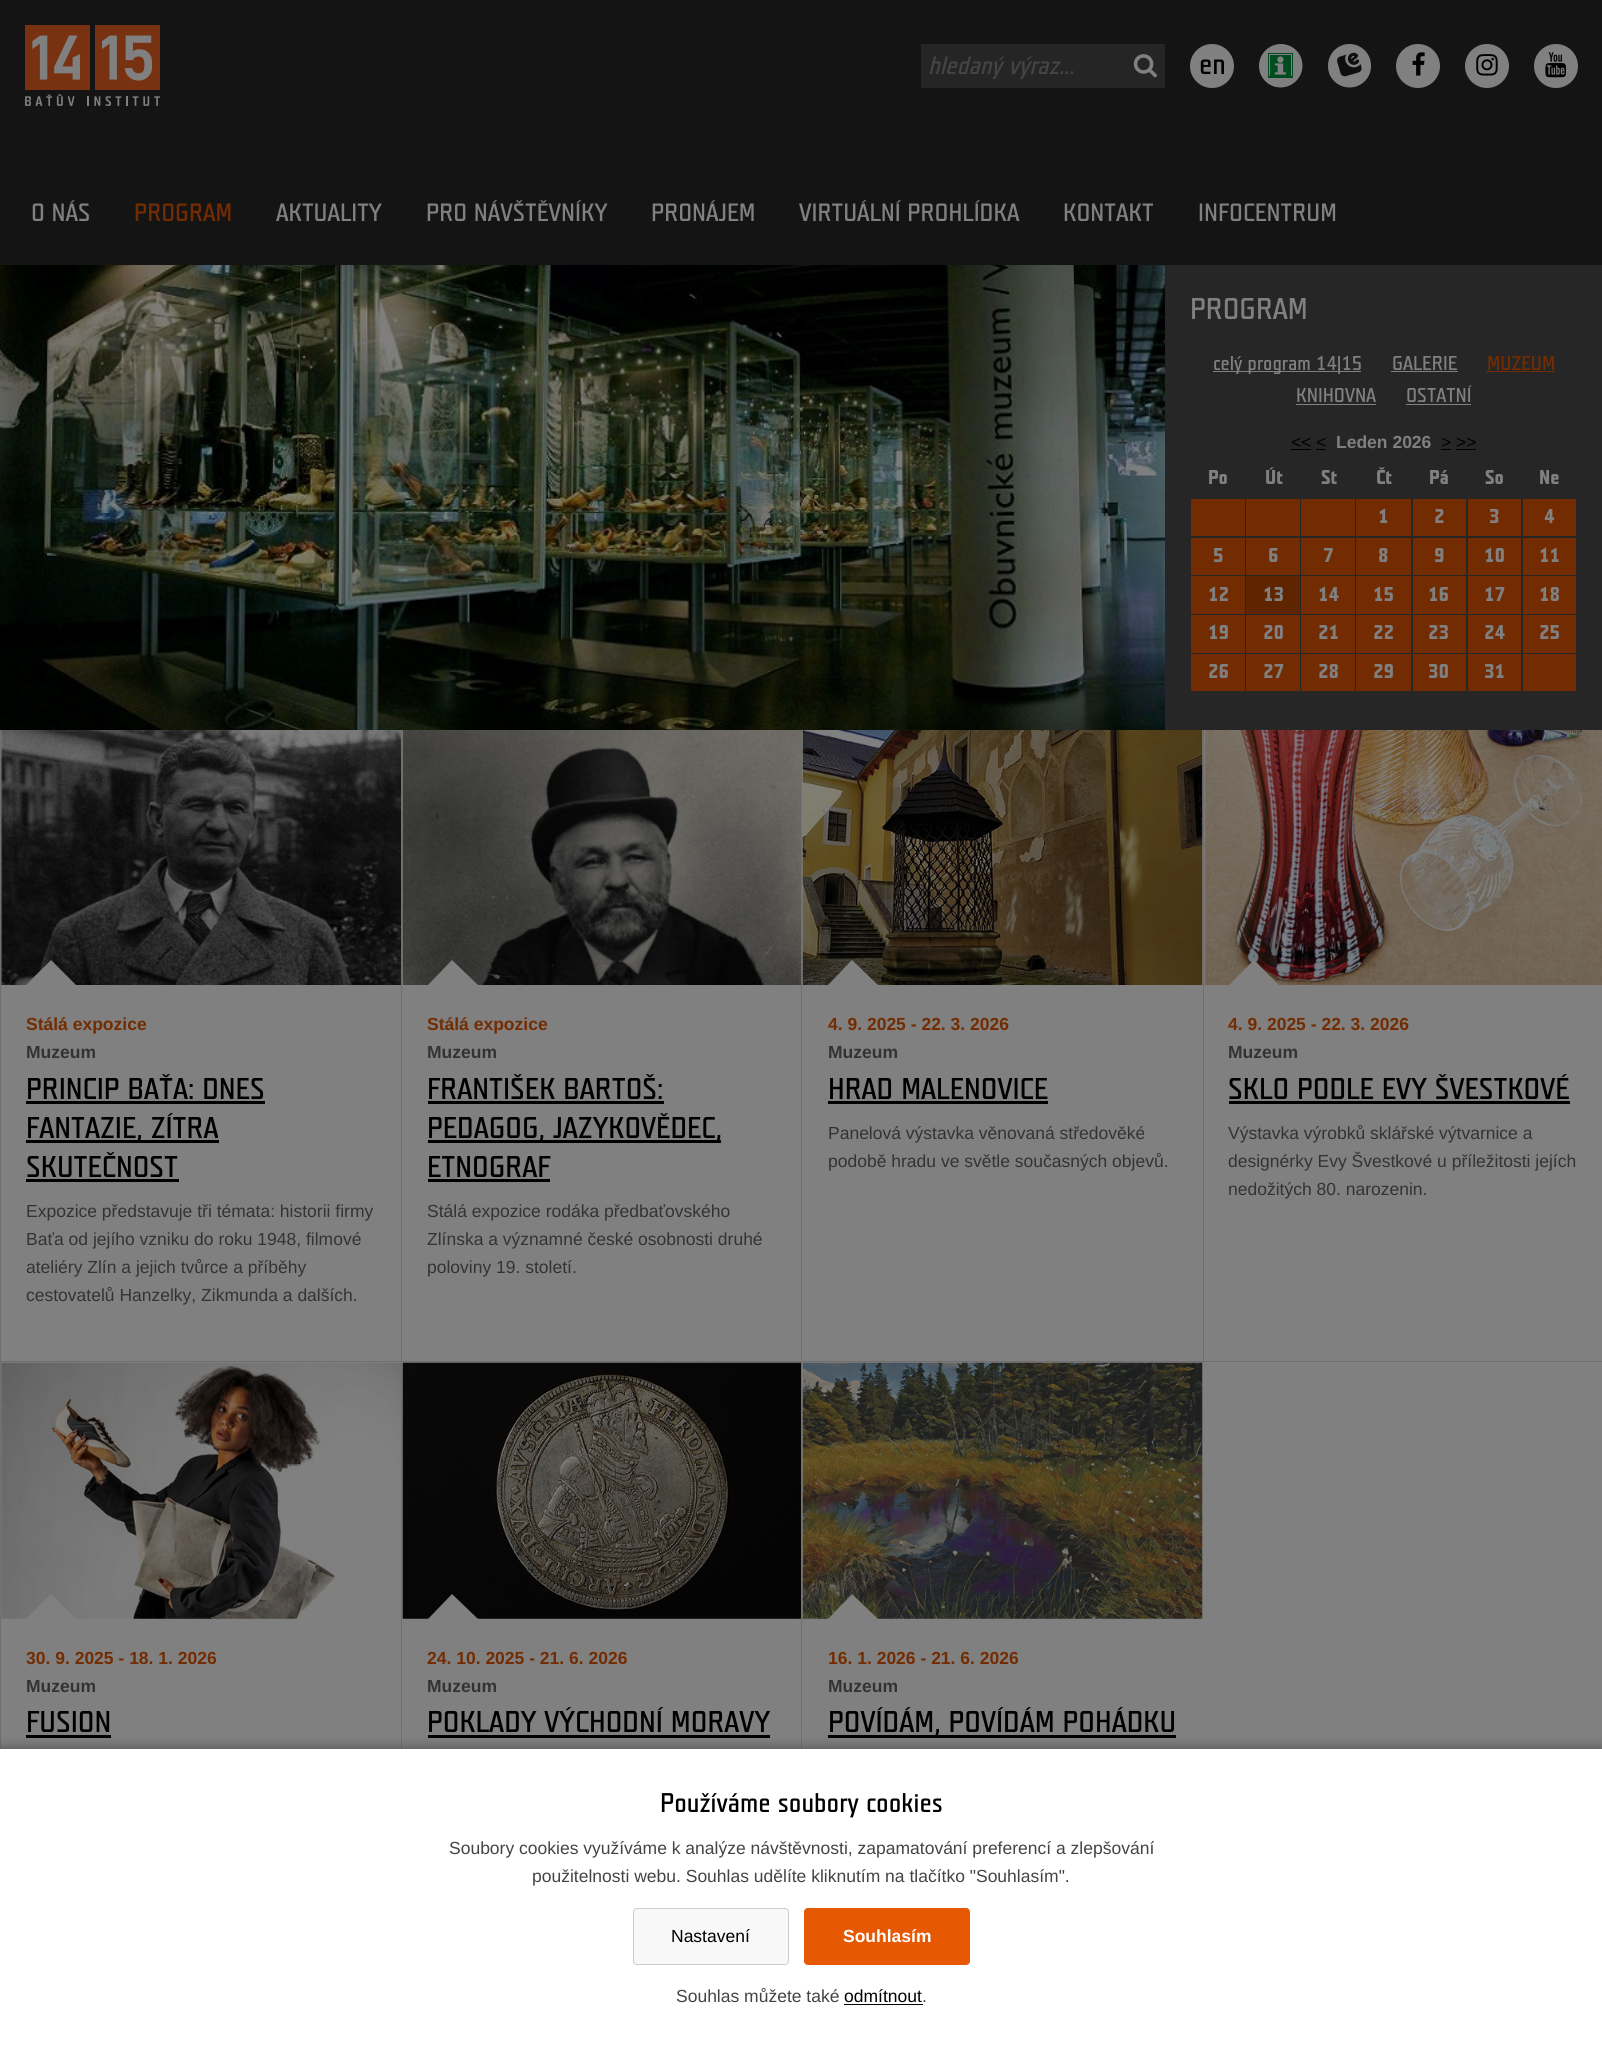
import math
import cairo


def round_path(ctx, x, y, w, h, r):
	ctx.new_sub_path()
	for i, (u, v) in enumerate([(x + w - r, y + h - r), (x + r, y + h - r), (x + r, y + r), (x + w - r, y + r)]):
		ctx.arc(u, v, r, i * math.pi / 2, (i + 1) * math.pi / 2)
	ctx.close_path()

def blur_box(ctx, x, y, w, h, r, blur, alpha):
	ctx.push_group_with_content(cairo.CONTENT_ALPHA)
	ctx.set_operator(cairo.OPERATOR_SOURCE)
	for i in range(15, -16, -2):
		e = blur * i / 6
		if min(w, h) + 2 * e > 0:
			ctx.set_source_rgba(0, 0, 0, alpha * math.erfc((i - 1) / 8.5) / 2)
			round_path(ctx, x - e, y - e, w + 2 * e, h + 2 * e, max(0, min(r + e + blur * .6, min(w, h) / 2 + e)))
			ctx.fill()
	ctx.mask(ctx.pop_group())

def paste(ctx, path, x, y, w, h):
	ctx.save()
	ctx.set_source_surface(cairo.ImageSurface.create_from_png(path), x, y)
	ctx.rectangle(x, y, w, h)
	ctx.fill()
	ctx.restore()

def draw(ctx):
	ctx.set_source_rgb(0.502, 0.502, 0.502)
	ctx.paint()
	ctx.set_source_rgb(0.082, 0.082, 0.082)
	ctx.rectangle(0, 0, 1602, 265)
	ctx.fill()
	paste(ctx, 'media/1.png', 25, 25, 135, 81)
	ctx.set_source_rgb(0.145, 0.145, 0.145)
	ctx.rectangle(921, 44, 244, 44)
	ctx.fill()
	ctx.select_font_face('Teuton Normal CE', cairo.FONT_SLANT_ITALIC)
	ctx.set_font_size(25)
	ctx.set_source_rgb(0.267, 0.267, 0.267)
	ctx.move_to(928, 74)
	ctx.show_text('hledaný výraz...')
	paste(ctx, 'media/2.png', 1133, 54, 24, 24)
	ctx.set_source_rgb(0.502, 0.502, 0.502)
	ctx.arc(1212, 66, 22, 0, 2 * math.pi)
	ctx.fill()
	ctx.select_font_face('Teuton Normal CE')
	ctx.set_font_size(29)
	ctx.set_source_rgb(0, 0, 0)
	ctx.move_to(1199, 74)
	ctx.show_text('en')
	paste(ctx, 'media/3.png', 1259, 44, 44, 44)
	paste(ctx, 'media/4.png', 1328, 44, 43, 44)
	ctx.set_source_rgb(0.502, 0.502, 0.502)
	ctx.arc(1418, 66, 22, 0, 2 * math.pi)
	ctx.fill()
	paste(ctx, 'media/5.png', 1412, 52, 13, 24)
	ctx.arc(1487, 66, 22, 0, 2 * math.pi)
	ctx.fill()
	paste(ctx, 'media/6.png', 1476, 54, 22, 22)
	ctx.arc(1556, 66, 22, 0, 2 * math.pi)
	ctx.fill()
	paste(ctx, 'media/7.png', 1545, 52, 22, 26)
	ctx.set_font_size(25)
	ctx.move_to(31, 221)
	ctx.show_text('O NÁS')
	ctx.set_source_rgb(0.451, 0.173, 0.004)
	ctx.move_to(134, 221)
	ctx.show_text('PROGRAM')
	ctx.set_source_rgb(0.502, 0.502, 0.502)
	for x, y, s in [
		(276, 221, 'AKTUALITY'),
		(426, 221, 'PRO NÁVŠTĚVNÍKY'),
		(651, 221, 'PRONÁJEM'),
		(799, 221, 'VIRTUÁLNÍ PROHLÍDKA'),
		(1063, 221, 'KONTAKT'),
		(1198, 221, 'INFOCENTRUM'),
	]:
		ctx.move_to(x, y)
		ctx.show_text(s)
	paste(ctx, 'media/8.png', 0, 265, 1165, 465)
	ctx.set_source_rgb(0.149, 0.149, 0.149)
	ctx.rectangle(1165, 265, 437, 465)
	ctx.fill()
	ctx.set_font_size(30)
	ctx.set_source_rgb(0.502, 0.502, 0.502)
	ctx.move_to(1190, 319)
	ctx.show_text('PROGRAM')
	ctx.rectangle(1213, 371, 148, 1)
	ctx.fill()
	ctx.set_font_size(20)
	ctx.move_to(1213, 370)
	ctx.show_text('celý program 14|15')
	ctx.move_to(1392, 370)
	ctx.show_text('GALERIE')
	ctx.rectangle(1391, 371, 67, 1)
	ctx.fill()
	ctx.set_source_rgb(0.451, 0.173, 0.004)
	ctx.move_to(1487, 370)
	ctx.show_text('MUZEUM')
	ctx.rectangle(1486, 371, 69, 1)
	ctx.fill()
	ctx.set_source_rgb(0.502, 0.502, 0.502)
	ctx.move_to(1296, 402)
	ctx.show_text('KNIHOVNA')
	ctx.rectangle(1296, 404, 80, 1)
	ctx.fill()
	ctx.move_to(1406, 402)
	ctx.show_text('OSTATNÍ')
	ctx.rectangle(1406, 404, 65, 1)
	ctx.fill()
	ctx.select_font_face('Liberation Sans')
	ctx.set_font_size(17.5)
	ctx.set_source_rgb(0, 0, 0)
	ctx.move_to(1291, 448)
	ctx.show_text('<< <')
	ctx.rectangle(1291, 449, 20, 1)
	ctx.fill()
	ctx.select_font_face('Liberation Sans', cairo.FONT_SLANT_NORMAL, cairo.FONT_WEIGHT_BOLD)
	ctx.set_source_rgb(0.502, 0.502, 0.502)
	ctx.move_to(1336, 448)
	ctx.show_text('Leden 2026')
	ctx.select_font_face('Liberation Sans')
	ctx.set_source_rgb(0, 0, 0)
	ctx.move_to(1441, 448)
	ctx.show_text('> >>')
	ctx.rectangle(1441, 449, 10, 1)
	ctx.rectangle(1316, 449, 10, 1)
	ctx.rectangle(1456, 449, 20, 1)
	ctx.fill()
	ctx.select_font_face('Teuton Normal CE', cairo.FONT_SLANT_NORMAL, cairo.FONT_WEIGHT_BOLD)
	ctx.set_font_size(20)
	ctx.set_source_rgb(0.502, 0.502, 0.502)
	for x, y, s in [
		(1208, 484, 'Po'),
		(1265, 484, 'Út'),
		(1321, 484, 'St'),
		(1376, 484, 'Čt'),
		(1429, 484, 'Pá'),
		(1485, 484, 'So'),
		(1539, 484, 'Ne'),
	]:
		ctx.move_to(x, y)
		ctx.show_text(s)
	ctx.set_source_rgb(0.451, 0.173, 0.004)
	ctx.rectangle(1191, 499, 54, 37)
	ctx.rectangle(1246, 499, 54, 37)
	ctx.rectangle(1301, 499, 54, 37)
	ctx.rectangle(1356, 499, 55, 37)
	ctx.fill()
	ctx.set_source_rgb(0.502, 0.502, 0.502)
	ctx.move_to(1378, 523)
	ctx.show_text('1')
	ctx.set_source_rgb(0.451, 0.173, 0.004)
	ctx.rectangle(1413, 499, 53, 37)
	ctx.fill()
	ctx.set_source_rgb(0.502, 0.502, 0.502)
	ctx.move_to(1434, 523)
	ctx.show_text('2')
	ctx.set_source_rgb(0.451, 0.173, 0.004)
	ctx.rectangle(1468, 499, 53, 37)
	ctx.fill()
	ctx.set_source_rgb(0.502, 0.502, 0.502)
	ctx.move_to(1489, 523)
	ctx.show_text('3')
	ctx.set_source_rgb(0.451, 0.173, 0.004)
	ctx.rectangle(1523, 499, 53, 37)
	ctx.fill()
	ctx.set_source_rgb(0.502, 0.502, 0.502)
	ctx.move_to(1544, 523)
	ctx.show_text('4')
	ctx.set_source_rgb(0.451, 0.173, 0.004)
	ctx.rectangle(1191, 538, 54, 37)
	ctx.fill()
	ctx.set_source_rgb(0.502, 0.502, 0.502)
	ctx.move_to(1213, 562)
	ctx.show_text('5')
	ctx.set_source_rgb(0.451, 0.173, 0.004)
	ctx.rectangle(1246, 538, 54, 37)
	ctx.fill()
	ctx.set_source_rgb(0.502, 0.502, 0.502)
	ctx.move_to(1268, 562)
	ctx.show_text('6')
	ctx.set_source_rgb(0.451, 0.173, 0.004)
	ctx.rectangle(1301, 538, 54, 37)
	ctx.fill()
	ctx.set_source_rgb(0.502, 0.502, 0.502)
	ctx.move_to(1323, 562)
	ctx.show_text('7')
	ctx.set_source_rgb(0.451, 0.173, 0.004)
	ctx.rectangle(1356, 538, 55, 37)
	ctx.fill()
	ctx.set_source_rgb(0.502, 0.502, 0.502)
	ctx.move_to(1378, 562)
	ctx.show_text('8')
	ctx.set_source_rgb(0.451, 0.173, 0.004)
	ctx.rectangle(1413, 538, 53, 37)
	ctx.fill()
	ctx.set_source_rgb(0.502, 0.502, 0.502)
	ctx.move_to(1434, 562)
	ctx.show_text('9')
	ctx.set_source_rgb(0.451, 0.173, 0.004)
	ctx.rectangle(1468, 538, 53, 37)
	ctx.fill()
	ctx.set_source_rgb(0.502, 0.502, 0.502)
	ctx.move_to(1484, 562)
	ctx.show_text('10')
	ctx.set_source_rgb(0.451, 0.173, 0.004)
	ctx.rectangle(1523, 538, 53, 37)
	ctx.fill()
	ctx.set_source_rgb(0.502, 0.502, 0.502)
	ctx.move_to(1539, 562)
	ctx.show_text('11')
	ctx.set_source_rgb(0.451, 0.173, 0.004)
	ctx.rectangle(1191, 576, 54, 38)
	ctx.fill()
	ctx.set_source_rgb(0.502, 0.502, 0.502)
	ctx.move_to(1208, 601)
	ctx.show_text('12')
	ctx.set_source_rgb(0.373, 0.145, 0.004)
	ctx.rectangle(1246, 576, 54, 38)
	ctx.fill()
	ctx.set_source_rgb(0.502, 0.502, 0.502)
	ctx.move_to(1263, 601)
	ctx.show_text('13')
	ctx.set_source_rgb(0.451, 0.173, 0.004)
	ctx.rectangle(1301, 576, 54, 38)
	ctx.fill()
	ctx.set_source_rgb(0.502, 0.502, 0.502)
	ctx.move_to(1318, 601)
	ctx.show_text('14')
	ctx.set_source_rgb(0.451, 0.173, 0.004)
	ctx.rectangle(1356, 576, 55, 38)
	ctx.fill()
	ctx.set_source_rgb(0.502, 0.502, 0.502)
	ctx.move_to(1373, 601)
	ctx.show_text('15')
	ctx.set_source_rgb(0.451, 0.173, 0.004)
	ctx.rectangle(1413, 576, 53, 38)
	ctx.fill()
	ctx.set_source_rgb(0.502, 0.502, 0.502)
	ctx.move_to(1428, 601)
	ctx.show_text('16')
	ctx.set_source_rgb(0.451, 0.173, 0.004)
	ctx.rectangle(1468, 576, 53, 38)
	ctx.fill()
	ctx.set_source_rgb(0.502, 0.502, 0.502)
	ctx.move_to(1484, 601)
	ctx.show_text('17')
	ctx.set_source_rgb(0.451, 0.173, 0.004)
	ctx.rectangle(1523, 576, 53, 38)
	ctx.fill()
	ctx.set_source_rgb(0.502, 0.502, 0.502)
	ctx.move_to(1539, 601)
	ctx.show_text('18')
	ctx.set_source_rgb(0.451, 0.173, 0.004)
	ctx.rectangle(1191, 615, 54, 38)
	ctx.fill()
	ctx.set_source_rgb(0.502, 0.502, 0.502)
	ctx.move_to(1208, 639)
	ctx.show_text('19')
	ctx.set_source_rgb(0.451, 0.173, 0.004)
	ctx.rectangle(1246, 615, 54, 38)
	ctx.fill()
	ctx.set_source_rgb(0.502, 0.502, 0.502)
	ctx.move_to(1263, 639)
	ctx.show_text('20')
	ctx.set_source_rgb(0.451, 0.173, 0.004)
	ctx.rectangle(1301, 615, 54, 38)
	ctx.fill()
	ctx.set_source_rgb(0.502, 0.502, 0.502)
	ctx.move_to(1318, 639)
	ctx.show_text('21')
	ctx.set_source_rgb(0.451, 0.173, 0.004)
	ctx.rectangle(1356, 615, 55, 38)
	ctx.fill()
	ctx.set_source_rgb(0.502, 0.502, 0.502)
	ctx.move_to(1373, 639)
	ctx.show_text('22')
	ctx.set_source_rgb(0.451, 0.173, 0.004)
	ctx.rectangle(1413, 615, 53, 38)
	ctx.fill()
	ctx.set_source_rgb(0.502, 0.502, 0.502)
	ctx.move_to(1428, 639)
	ctx.show_text('23')
	ctx.set_source_rgb(0.451, 0.173, 0.004)
	ctx.rectangle(1468, 615, 53, 38)
	ctx.fill()
	ctx.set_source_rgb(0.502, 0.502, 0.502)
	ctx.move_to(1484, 639)
	ctx.show_text('24')
	ctx.set_source_rgb(0.451, 0.173, 0.004)
	ctx.rectangle(1523, 615, 53, 38)
	ctx.fill()
	ctx.set_source_rgb(0.502, 0.502, 0.502)
	ctx.move_to(1539, 639)
	ctx.show_text('25')
	ctx.set_source_rgb(0.451, 0.173, 0.004)
	ctx.rectangle(1191, 654, 54, 37)
	ctx.fill()
	ctx.set_source_rgb(0.502, 0.502, 0.502)
	ctx.move_to(1208, 678)
	ctx.show_text('26')
	ctx.set_source_rgb(0.451, 0.173, 0.004)
	ctx.rectangle(1246, 654, 54, 37)
	ctx.fill()
	ctx.set_source_rgb(0.502, 0.502, 0.502)
	ctx.move_to(1263, 678)
	ctx.show_text('27')
	ctx.set_source_rgb(0.451, 0.173, 0.004)
	ctx.rectangle(1301, 654, 54, 37)
	ctx.fill()
	ctx.set_source_rgb(0.502, 0.502, 0.502)
	ctx.move_to(1318, 678)
	ctx.show_text('28')
	ctx.set_source_rgb(0.451, 0.173, 0.004)
	ctx.rectangle(1356, 654, 55, 37)
	ctx.fill()
	ctx.set_source_rgb(0.502, 0.502, 0.502)
	ctx.move_to(1373, 678)
	ctx.show_text('29')
	ctx.set_source_rgb(0.451, 0.173, 0.004)
	ctx.rectangle(1413, 654, 53, 37)
	ctx.fill()
	ctx.set_source_rgb(0.502, 0.502, 0.502)
	ctx.move_to(1428, 678)
	ctx.show_text('30')
	ctx.set_source_rgb(0.451, 0.173, 0.004)
	ctx.rectangle(1468, 654, 53, 37)
	ctx.fill()
	ctx.set_source_rgb(0.502, 0.502, 0.502)
	ctx.move_to(1484, 678)
	ctx.show_text('31')
	ctx.set_source_rgb(0.451, 0.173, 0.004)
	ctx.rectangle(1523, 654, 53, 37)
	ctx.fill()
	ctx.set_source_rgb(0.435, 0.435, 0.435)
	ctx.rectangle(0, 1361, 1602, 1)
	ctx.rectangle(0, 730, 1, 1019)
	ctx.fill()
	paste(ctx, 'media/9.png', 1, 730, 400, 255)
	ctx.set_source_rgb(0.502, 0.502, 0.502)
	ctx.new_path()
	ctx.move_to(76, 985)
	ctx.line_to(26, 985)
	ctx.line_to(51, 960)
	ctx.close_path()
	ctx.fill()
	ctx.select_font_face('Liberation Sans', cairo.FONT_SLANT_NORMAL, cairo.FONT_WEIGHT_BOLD)
	ctx.set_font_size(17.5)
	ctx.set_source_rgb(0.451, 0.173, 0.004)
	ctx.move_to(26, 1030)
	ctx.show_text('Stálá expozice')
	ctx.set_source_rgb(0.2, 0.2, 0.2)
	ctx.move_to(26, 1058)
	ctx.show_text('Muzeum')
	ctx.select_font_face('Teuton Normal CE')
	ctx.set_font_size(30)
	ctx.set_source_rgb(0, 0, 0)
	ctx.move_to(26, 1099)
	ctx.show_text('PRINCIP BAŤA: DNES')
	ctx.rectangle(26, 1101, 239, 3)
	ctx.fill()
	ctx.rectangle(26, 1140, 193, 3)
	ctx.fill()
	ctx.move_to(26, 1138)
	ctx.show_text('FANTAZIE, ZÍTRA')
	ctx.move_to(26, 1177)
	ctx.show_text('SKUTEČNOST')
	ctx.rectangle(26, 1179, 153, 3)
	ctx.fill()
	ctx.select_font_face('Liberation Sans')
	ctx.set_font_size(17.5)
	ctx.set_source_rgb(0.2, 0.2, 0.2)
	for x, y, s in [
		(26, 1217, 'Expozice představuje tři témata: historii firmy'),
		(26, 1245, 'Baťa od jejího vzniku do roku 1948, filmové'),
		(26, 1273, 'ateliéry Zlín a jejich tvůrce a příběhy'),
		(26, 1301, 'cestovatelů Hanzelky, Zikmunda a dalších.'),
	]:
		ctx.move_to(x, y)
		ctx.show_text(s)
	ctx.set_source_rgb(0.435, 0.435, 0.435)
	ctx.rectangle(401, 730, 1, 1019)
	ctx.fill()
	paste(ctx, 'media/10.png', 402, 730, 399, 255)
	ctx.set_source_rgb(0.502, 0.502, 0.502)
	ctx.new_path()
	ctx.move_to(478, 985)
	ctx.line_to(428, 985)
	ctx.line_to(452, 960)
	ctx.close_path()
	ctx.fill()
	ctx.select_font_face('Liberation Sans', cairo.FONT_SLANT_NORMAL, cairo.FONT_WEIGHT_BOLD)
	ctx.set_source_rgb(0.451, 0.173, 0.004)
	ctx.move_to(427, 1030)
	ctx.show_text('Stálá expozice')
	ctx.set_source_rgb(0.2, 0.2, 0.2)
	ctx.move_to(427, 1058)
	ctx.show_text('Muzeum')
	ctx.select_font_face('Teuton Normal CE')
	ctx.set_font_size(30)
	ctx.set_source_rgb(0, 0, 0)
	ctx.move_to(427, 1099)
	ctx.show_text('FRANTIŠEK BARTOŠ:')
	ctx.rectangle(428, 1101, 236, 3)
	ctx.fill()
	ctx.rectangle(428, 1140, 293, 3)
	ctx.fill()
	ctx.move_to(427, 1138)
	ctx.show_text('PEDAGOG, JAZYKOVĚDEC,')
	ctx.move_to(427, 1177)
	ctx.show_text('ETNOGRAF')
	ctx.rectangle(428, 1179, 122, 3)
	ctx.fill()
	ctx.select_font_face('Liberation Sans')
	ctx.set_font_size(17.5)
	ctx.set_source_rgb(0.2, 0.2, 0.2)
	for x, y, s in [
		(427, 1217, 'Stálá expozice rodáka předbaťovského'),
		(427, 1245, 'Zlínska a významné české osobnosti druhé'),
		(427, 1273, 'poloviny 19. století.'),
	]:
		ctx.move_to(x, y)
		ctx.show_text(s)
	ctx.set_source_rgb(0.435, 0.435, 0.435)
	ctx.rectangle(801, 730, 1, 1019)
	ctx.fill()
	paste(ctx, 'media/11.png', 802, 730, 401, 255)
	ctx.set_source_rgb(0.502, 0.502, 0.502)
	ctx.new_path()
	ctx.move_to(878, 985)
	ctx.line_to(828, 985)
	ctx.line_to(852, 960)
	ctx.close_path()
	ctx.fill()
	ctx.select_font_face('Liberation Sans', cairo.FONT_SLANT_NORMAL, cairo.FONT_WEIGHT_BOLD)
	ctx.set_source_rgb(0.451, 0.173, 0.004)
	ctx.move_to(828, 1030)
	ctx.show_text('4. 9. 2025 - 22. 3. 2026')
	ctx.set_source_rgb(0.2, 0.2, 0.2)
	ctx.move_to(828, 1058)
	ctx.show_text('Muzeum')
	ctx.select_font_face('Teuton Normal CE')
	ctx.set_font_size(30)
	ctx.set_source_rgb(0, 0, 0)
	ctx.move_to(828, 1099)
	ctx.show_text('HRAD MALENOVICE')
	ctx.rectangle(828, 1101, 220, 3)
	ctx.fill()
	ctx.select_font_face('Liberation Sans')
	ctx.set_font_size(17.5)
	ctx.set_source_rgb(0.2, 0.2, 0.2)
	ctx.move_to(828, 1139)
	ctx.show_text('Panelová výstavka věnovaná středověké')
	ctx.move_to(828, 1167)
	ctx.show_text('podobě hradu ve světle současných objevů.')
	ctx.set_source_rgb(0.435, 0.435, 0.435)
	ctx.rectangle(1203, 730, 1, 633)
	ctx.fill()
	paste(ctx, 'media/12.png', 1204, 730, 398, 255)
	ctx.set_source_rgb(0.502, 0.502, 0.502)
	ctx.new_path()
	ctx.move_to(1279, 985)
	ctx.line_to(1229, 985)
	ctx.line_to(1254, 960)
	ctx.close_path()
	ctx.fill()
	ctx.select_font_face('Liberation Sans', cairo.FONT_SLANT_NORMAL, cairo.FONT_WEIGHT_BOLD)
	ctx.set_source_rgb(0.451, 0.173, 0.004)
	ctx.move_to(1228, 1030)
	ctx.show_text('4. 9. 2025 - 22. 3. 2026')
	ctx.set_source_rgb(0.2, 0.2, 0.2)
	ctx.move_to(1228, 1058)
	ctx.show_text('Muzeum')
	ctx.select_font_face('Teuton Normal CE')
	ctx.set_font_size(30)
	ctx.set_source_rgb(0, 0, 0)
	ctx.move_to(1228, 1099)
	ctx.show_text('SKLO PODLE EVY ŠVESTKOVÉ')
	ctx.rectangle(1229, 1101, 341, 3)
	ctx.fill()
	ctx.select_font_face('Liberation Sans')
	ctx.set_font_size(17.5)
	ctx.set_source_rgb(0.2, 0.2, 0.2)
	for x, y, s in [
		(1228, 1139, 'Výstavka výrobků sklářské výtvarnice a'),
		(1228, 1167, 'designérky Evy Švestkové u příležitosti jejích'),
		(1228, 1195, 'nedožitých 80. narozenin.'),
	]:
		ctx.move_to(x, y)
		ctx.show_text(s)
	paste(ctx, 'media/13.png', 1, 1362, 400, 257)
	ctx.set_source_rgb(0.502, 0.502, 0.502)
	ctx.new_path()
	ctx.move_to(76, 1619)
	ctx.line_to(26, 1619)
	ctx.line_to(51, 1594)
	ctx.close_path()
	ctx.fill()
	ctx.select_font_face('Liberation Sans', cairo.FONT_SLANT_NORMAL, cairo.FONT_WEIGHT_BOLD)
	ctx.set_source_rgb(0.451, 0.173, 0.004)
	ctx.move_to(26, 1664)
	ctx.show_text('30. 9. 2025 - 18. 1. 2026')
	ctx.set_source_rgb(0.2, 0.2, 0.2)
	ctx.move_to(26, 1692)
	ctx.show_text('Muzeum')
	ctx.select_font_face('Teuton Normal CE')
	ctx.set_font_size(30)
	ctx.set_source_rgb(0, 0, 0)
	ctx.move_to(26, 1732)
	ctx.show_text('FUSION')
	ctx.rectangle(26, 1735, 85, 3)
	ctx.fill()
	paste(ctx, 'media/14.png', 402, 1362, 399, 257)
	ctx.set_source_rgb(0.502, 0.502, 0.502)
	ctx.new_path()
	ctx.move_to(478, 1619)
	ctx.line_to(428, 1619)
	ctx.line_to(452, 1594)
	ctx.close_path()
	ctx.fill()
	ctx.select_font_face('Liberation Sans', cairo.FONT_SLANT_NORMAL, cairo.FONT_WEIGHT_BOLD)
	ctx.set_font_size(17.5)
	ctx.set_source_rgb(0.451, 0.173, 0.004)
	ctx.move_to(427, 1664)
	ctx.show_text('24. 10. 2025 - 21. 6. 2026')
	ctx.set_source_rgb(0.2, 0.2, 0.2)
	ctx.move_to(427, 1692)
	ctx.show_text('Muzeum')
	ctx.select_font_face('Teuton Normal CE')
	ctx.set_font_size(30)
	ctx.set_source_rgb(0, 0, 0)
	ctx.move_to(427, 1732)
	ctx.show_text('POKLADY VÝCHODNÍ MORAVY')
	ctx.rectangle(428, 1735, 342, 3)
	ctx.fill()
	paste(ctx, 'media/15.png', 802, 1362, 401, 257)
	ctx.set_source_rgb(0.502, 0.502, 0.502)
	ctx.new_path()
	ctx.move_to(878, 1619)
	ctx.line_to(828, 1619)
	ctx.line_to(852, 1594)
	ctx.close_path()
	ctx.fill()
	ctx.select_font_face('Liberation Sans', cairo.FONT_SLANT_NORMAL, cairo.FONT_WEIGHT_BOLD)
	ctx.set_font_size(17.5)
	ctx.set_source_rgb(0.451, 0.173, 0.004)
	ctx.move_to(828, 1664)
	ctx.show_text('16. 1. 2026 - 21. 6. 2026')
	ctx.set_source_rgb(0.2, 0.2, 0.2)
	ctx.move_to(828, 1692)
	ctx.show_text('Muzeum')
	ctx.set_source_rgb(0, 0, 0)
	ctx.rectangle(828, 1735, 348, 3)
	ctx.fill()
	ctx.select_font_face('Teuton Normal CE')
	ctx.set_font_size(30)
	ctx.move_to(828, 1732)
	ctx.show_text('POVÍDÁM, POVÍDÁM POHÁDKU')
	ctx.set_source_rgb(0, 0, 0)
	blur_box(ctx, 0, 1746, 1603, 312, 0, 5, 0.25)
	ctx.set_source_rgb(1, 1, 1)
	ctx.rectangle(0, 1749, 1602, 311)
	ctx.fill()
	ctx.set_font_size(27)
	ctx.set_source_rgb(0, 0, 0)
	ctx.move_to(660, 1812)
	ctx.show_text('Používáme soubory cookies')
	ctx.select_font_face('Liberation Sans')
	ctx.set_font_size(17.5)
	ctx.set_source_rgb(0.267, 0.267, 0.267)
	ctx.move_to(449, 1854)
	ctx.show_text('Soubory cookies využíváme k analýze návštěvnosti, zapamatování preferencí a zlepšování')
	ctx.move_to(532, 1882)
	ctx.show_text('použitelnosti webu. Souhlas udělíte kliknutím na tlačítko "Souhlasím".')
	ctx.set_source_rgb(0.969, 0.969, 0.969)
	round_path(ctx, 633.5, 1908.5, 155, 56, 3.5)
	ctx.fill_preserve()
	ctx.set_source_rgb(0.8, 0.8, 0.8)
	ctx.set_line_width(1)
	ctx.stroke()
	ctx.set_source_rgb(0, 0, 0)
	ctx.move_to(671, 1942)
	ctx.show_text('Nastavení')
	ctx.set_source_rgb(0.902, 0.345, 0.008)
	round_path(ctx, 804.5, 1908.5, 165, 56, 3.5)
	ctx.fill_preserve()
	ctx.stroke()
	ctx.select_font_face('Liberation Sans', cairo.FONT_SLANT_NORMAL, cairo.FONT_WEIGHT_BOLD)
	ctx.set_source_rgb(1, 1, 1)
	ctx.move_to(843, 1942)
	ctx.show_text('Souhlasím')
	ctx.select_font_face('Liberation Sans')
	ctx.set_source_rgb(0.267, 0.267, 0.267)
	ctx.move_to(676, 2002)
	ctx.show_text('Souhlas můžete také')
	ctx.set_source_rgb(0, 0, 0)
	ctx.move_to(844, 2002)
	ctx.show_text('odmítnout')
	ctx.rectangle(844, 2004, 79, 1)
	ctx.fill()
	ctx.set_source_rgb(0.267, 0.267, 0.267)
	ctx.move_to(922, 2002)
	ctx.show_text('.')


surface = cairo.ImageSurface(cairo.FORMAT_RGB24, 1602, 2060)
ctx = cairo.Context(surface)
options = cairo.FontOptions()
options.set_hint_metrics(cairo.HINT_METRICS_OFF)
options.set_hint_style(cairo.HINT_STYLE_NONE)
ctx.set_font_options(options)
ctx.set_miter_limit(4)
draw(ctx)
surface.write_to_png('image.png')
